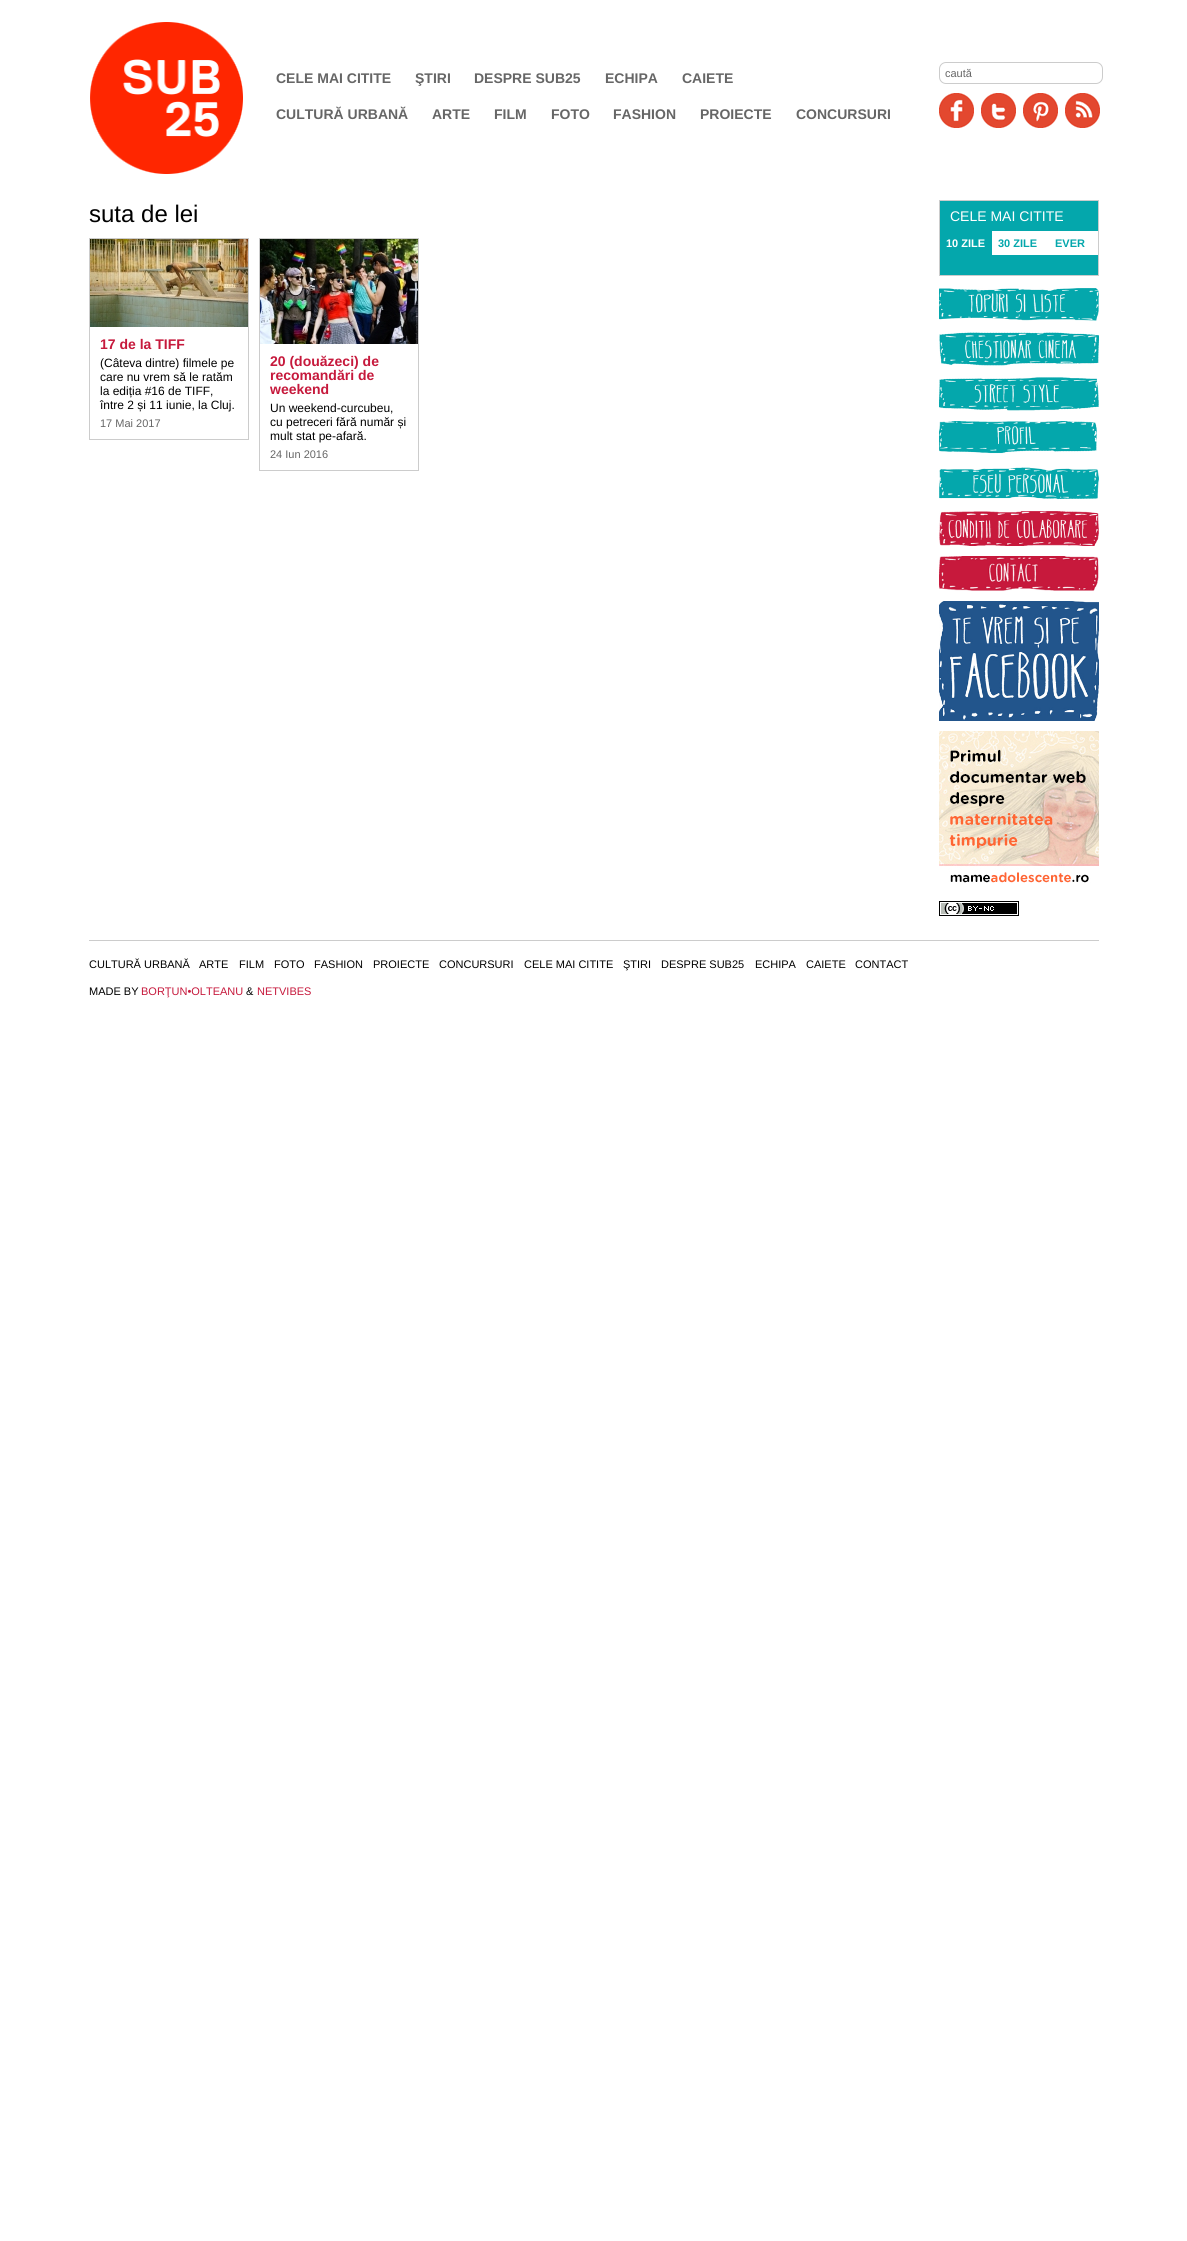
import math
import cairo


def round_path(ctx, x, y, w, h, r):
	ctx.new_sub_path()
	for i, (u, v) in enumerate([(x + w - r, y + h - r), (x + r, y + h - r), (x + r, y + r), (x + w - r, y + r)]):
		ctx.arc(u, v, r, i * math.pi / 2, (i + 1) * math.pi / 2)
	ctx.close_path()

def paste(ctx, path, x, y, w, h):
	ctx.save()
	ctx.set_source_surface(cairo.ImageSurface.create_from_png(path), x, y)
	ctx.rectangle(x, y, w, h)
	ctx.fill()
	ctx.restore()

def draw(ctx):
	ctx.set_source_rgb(1, 1, 1)
	ctx.paint()
	paste(ctx, 'media/1.png', 90, 22, 153, 152)
	ctx.select_font_face('Liberation Sans', cairo.FONT_SLANT_NORMAL, cairo.FONT_WEIGHT_BOLD)
	ctx.set_font_size(14)
	ctx.set_source_rgb(0.4, 0.4, 0.4)
	for x, y, s in [
		(276, 83, 'CELE MAI CITITE'),
		(415, 83, 'ŞTIRI'),
		(474, 83, 'DESPRE SUB25'),
		(605, 83, 'ECHIPA'),
		(682, 83, 'CAIETE'),
		(276, 119, 'CULTURĂ URBANĂ'),
		(432, 119, 'ARTE'),
		(494, 119, 'FILM'),
		(551, 119, 'FOTO'),
		(613, 119, 'FASHION'),
		(700, 119, 'PROIECTE'),
		(796, 119, 'CONCURSURI'),
	]:
		ctx.move_to(x, y)
		ctx.show_text(s)
	round_path(ctx, 939.5, 62.5, 163, 21, 6.5)
	ctx.set_source_rgb(0.8, 0.8, 0.8)
	ctx.set_line_width(1)
	ctx.stroke()
	ctx.select_font_face('Liberation Sans')
	ctx.set_font_size(11)
	ctx.set_source_rgb(0.4, 0.4, 0.4)
	ctx.move_to(945, 77)
	ctx.show_text('caută')
	paste(ctx, 'media/2.png', 939, 93, 35, 35)
	paste(ctx, 'media/3.png', 981, 93, 35, 35)
	paste(ctx, 'media/4.png', 1023, 93, 35, 35)
	paste(ctx, 'media/5.png', 1065, 93, 35, 35)
	ctx.set_font_size(24)
	ctx.set_source_rgb(0, 0, 0)
	ctx.move_to(89, 222)
	ctx.show_text('suta de lei')
	ctx.rectangle(89.5, 238.5, 159, 201)
	ctx.set_source_rgb(0.8, 0.8, 0.8)
	ctx.stroke()
	paste(ctx, 'media/6.png', 90, 239, 158, 88)
	ctx.select_font_face('Liberation Sans', cairo.FONT_SLANT_NORMAL, cairo.FONT_WEIGHT_BOLD)
	ctx.set_font_size(14)
	ctx.set_source_rgb(0.776, 0.098, 0.235)
	ctx.move_to(100, 349)
	ctx.show_text('17 de la TIFF')
	ctx.select_font_face('Liberation Sans')
	ctx.set_font_size(12)
	ctx.set_source_rgb(0, 0, 0)
	for x, y, s in [
		(100, 367, '(Câteva dintre) filmele pe'),
		(100, 381, 'care nu vrem să le ratăm'),
		(100, 395, 'la ediția #16 de TIFF,'),
		(100, 409, 'între 2 și 11 iunie, la Cluj.'),
	]:
		ctx.move_to(x, y)
		ctx.show_text(s)
	ctx.set_font_size(11)
	ctx.set_source_rgb(0.4, 0.4, 0.4)
	ctx.move_to(100, 427)
	ctx.show_text('17 Mai 2017')
	ctx.rectangle(259.5, 238.5, 159, 232)
	ctx.set_source_rgb(0.8, 0.8, 0.8)
	ctx.stroke()
	paste(ctx, 'media/7.png', 260, 239, 158, 105)
	ctx.select_font_face('Liberation Sans', cairo.FONT_SLANT_NORMAL, cairo.FONT_WEIGHT_BOLD)
	ctx.set_font_size(14)
	ctx.set_source_rgb(0.776, 0.098, 0.235)
	for x, y, s in [
		(270, 366, '20 (douăzeci) de'),
		(270, 380, 'recomandări de'),
		(270, 394, 'weekend'),
	]:
		ctx.move_to(x, y)
		ctx.show_text(s)
	ctx.select_font_face('Liberation Sans')
	ctx.set_font_size(12)
	ctx.set_source_rgb(0, 0, 0)
	for x, y, s in [
		(270, 412, 'Un weekend-curcubeu,'),
		(270, 426, 'cu petreceri fără număr și'),
		(270, 440, 'mult stat pe-afară.'),
	]:
		ctx.move_to(x, y)
		ctx.show_text(s)
	ctx.set_font_size(11)
	ctx.set_source_rgb(0.4, 0.4, 0.4)
	ctx.move_to(270, 458)
	ctx.show_text('24 Iun 2016')
	ctx.set_source_rgb(0.016, 0.655, 0.675)
	ctx.rectangle(939.5, 200.5, 159, 75)
	ctx.fill_preserve()
	ctx.set_source_rgb(0.8, 0.8, 0.8)
	ctx.stroke()
	ctx.set_font_size(14)
	ctx.set_source_rgb(1, 1, 1)
	ctx.move_to(950, 221)
	ctx.show_text('CELE MAI CITITE')
	ctx.rectangle(992, 231, 106, 24)
	ctx.fill()
	ctx.select_font_face('Liberation Sans', cairo.FONT_SLANT_NORMAL, cairo.FONT_WEIGHT_BOLD)
	ctx.set_font_size(11)
	ctx.move_to(946, 247)
	ctx.show_text('10 ZILE')
	ctx.set_source_rgb(0.016, 0.655, 0.675)
	ctx.move_to(998, 247)
	ctx.show_text('30 ZILE')
	ctx.move_to(1055, 247)
	ctx.show_text('EVER')
	paste(ctx, 'media/8.png', 939, 288, 160, 33)
	paste(ctx, 'media/9.png', 939, 332, 160, 34)
	paste(ctx, 'media/10.png', 939, 377, 160, 34)
	paste(ctx, 'media/11.png', 939, 421, 158, 33)
	paste(ctx, 'media/12.png', 939, 467, 160, 33)
	paste(ctx, 'media/13.png', 939, 511, 160, 35)
	paste(ctx, 'media/14.png', 939, 556, 160, 35)
	paste(ctx, 'media/15.png', 939, 601, 160, 120)
	paste(ctx, 'media/16.png', 939, 731, 160, 152)
	paste(ctx, 'media/17.png', 939, 901, 80, 15)
	ctx.set_source_rgb(0.8, 0.8, 0.8)
	ctx.rectangle(89, 940, 1010, 1)
	ctx.fill()
	ctx.select_font_face('Liberation Sans')
	ctx.set_source_rgb(0, 0, 0)
	for x, y, s in [
		(89, 968, 'CULTURĂ URBANĂ'),
		(199, 968, 'ARTE'),
		(239, 968, 'FILM'),
		(274, 968, 'FOTO'),
		(314, 968, 'FASHION'),
		(373, 968, 'PROIECTE'),
		(439, 968, 'CONCURSURI'),
		(524, 968, 'CELE MAI CITITE'),
		(623, 968, 'ŞTIRI'),
		(661, 968, 'DESPRE SUB25'),
		(755, 968, 'ECHIPA'),
		(806, 968, 'CAIETE'),
		(855, 968, 'CONTACT'),
		(89, 995, 'MADE BY'),
	]:
		ctx.move_to(x, y)
		ctx.show_text(s)
	ctx.set_source_rgb(0.776, 0.098, 0.235)
	ctx.move_to(141, 995)
	ctx.show_text('BORŢUN•OLTEANU')
	ctx.set_source_rgb(0, 0, 0)
	ctx.move_to(246, 995)
	ctx.show_text('&')
	ctx.set_source_rgb(0.776, 0.098, 0.235)
	ctx.move_to(257, 995)
	ctx.show_text('NETVIBES')


surface = cairo.ImageSurface(cairo.FORMAT_RGB24, 1187, 2241)
ctx = cairo.Context(surface)
options = cairo.FontOptions()
options.set_hint_metrics(cairo.HINT_METRICS_OFF)
options.set_hint_style(cairo.HINT_STYLE_NONE)
ctx.set_font_options(options)
ctx.set_miter_limit(4)
draw(ctx)
surface.write_to_png('image.png')
